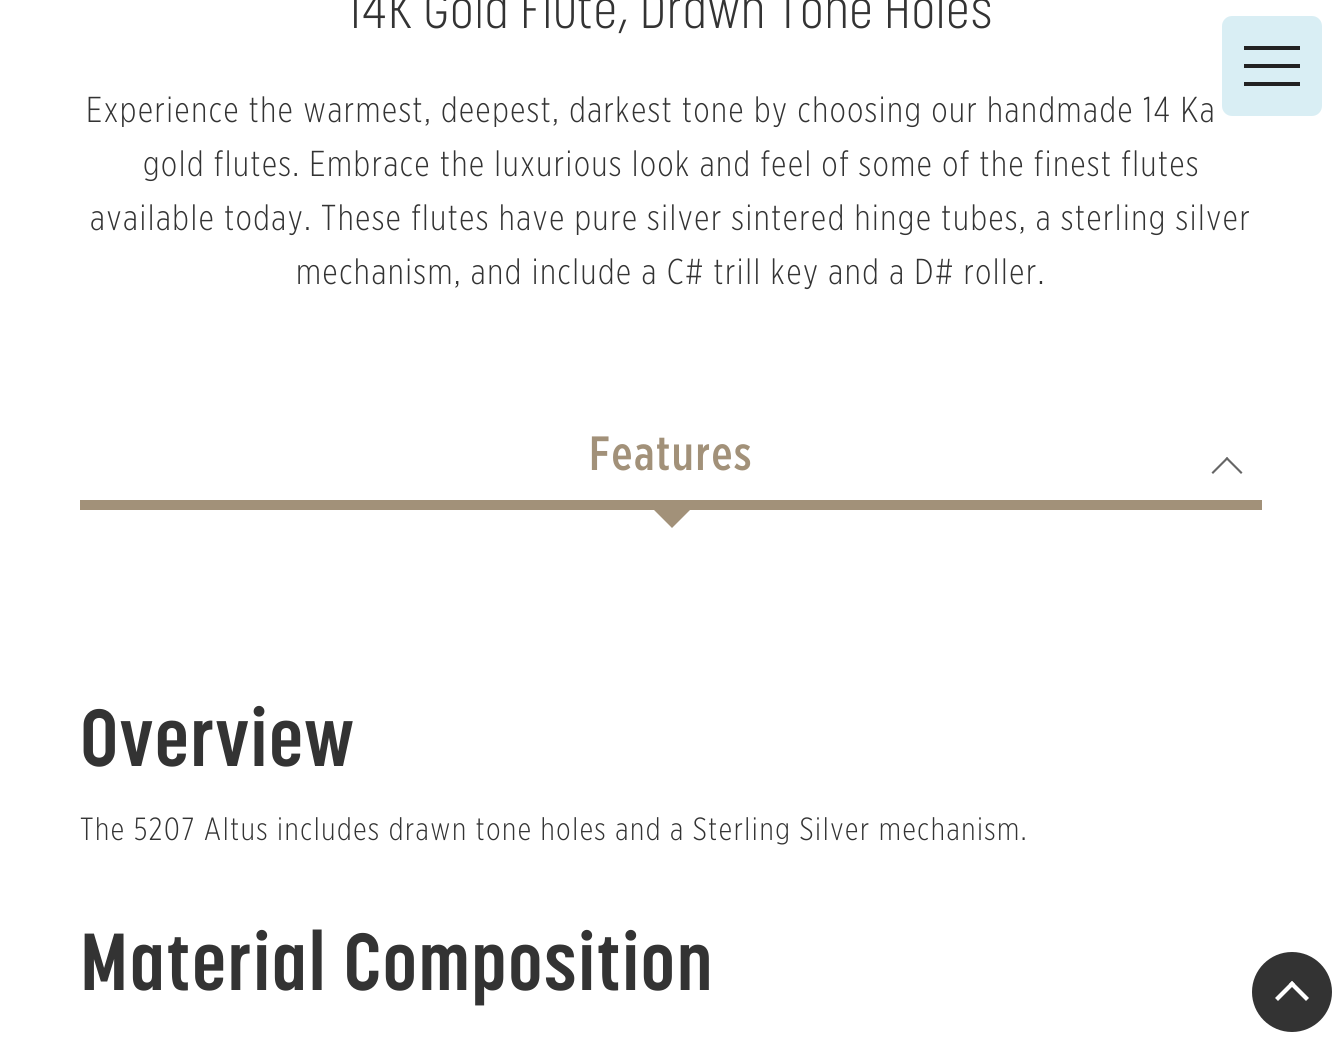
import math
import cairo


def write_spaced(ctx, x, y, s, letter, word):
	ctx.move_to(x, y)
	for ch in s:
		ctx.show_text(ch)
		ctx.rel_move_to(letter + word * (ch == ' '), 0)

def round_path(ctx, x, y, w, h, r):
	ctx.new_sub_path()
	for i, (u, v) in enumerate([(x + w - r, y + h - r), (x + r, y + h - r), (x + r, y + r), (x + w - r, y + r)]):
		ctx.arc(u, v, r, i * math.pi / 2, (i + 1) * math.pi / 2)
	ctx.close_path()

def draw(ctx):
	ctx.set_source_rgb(1, 1, 1)
	ctx.paint()
	ctx.select_font_face('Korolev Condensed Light')
	ctx.set_font_size(52)
	ctx.set_source_rgb(0.2, 0.2, 0.2)
	write_spaced(ctx, 349, 28, '14K Gold Flute, Drawn Tone Holes', 1.6, 0)
	ctx.select_font_face('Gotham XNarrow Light')
	ctx.set_font_size(36)
	for x, y, s in [
		(86, 122, 'Experience the warmest, deepest, darkest tone by choosing our handmade 14 Ka'),
		(143, 176, 'gold flutes. Embrace the luxurious look and feel of some of the finest flutes'),
		(90, 230, 'available today. These flutes have pure silver sintered hinge tubes, a sterling silver'),
		(296, 284, 'mechanism, and include a C# trill key and a D# roller.'),
	]:
		write_spaced(ctx, x, y, s, 1.6, 0)
	ctx.set_source_rgb(0.635, 0.569, 0.475)
	ctx.rectangle(80, 500, 1182, 10)
	ctx.fill()
	ctx.select_font_face('Gotham XNarrow Medium')
	ctx.set_font_size(48)
	write_spaced(ctx, 589, 470, 'Features', 1.6, 0)
	ctx.set_source_rgb(0.4, 0.4, 0.4)
	ctx.new_path()
	ctx.move_to(1211.5, 472.5)
	ctx.line_to(1227, 457)
	ctx.line_to(1228.5, 458.5)
	ctx.line_to(1213, 474)
	ctx.close_path()
	ctx.fill()
	ctx.new_path()
	ctx.move_to(1225.5, 458.5)
	ctx.line_to(1227, 457)
	ctx.line_to(1242.5, 472.5)
	ctx.line_to(1241, 474)
	ctx.close_path()
	ctx.fill()
	ctx.set_source_rgb(0.635, 0.569, 0.475)
	ctx.new_path()
	ctx.move_to(654, 510)
	ctx.line_to(690, 510)
	ctx.line_to(672, 528)
	ctx.close_path()
	ctx.fill()
	ctx.select_font_face('Korolev Condensed', cairo.FONT_SLANT_NORMAL, cairo.FONT_WEIGHT_BOLD)
	ctx.set_font_size(80)
	ctx.set_source_rgb(0.2, 0.2, 0.2)
	write_spaced(ctx, 80, 766, 'Overview', 1.6, 0)
	ctx.select_font_face('Gotham XNarrow Light')
	ctx.set_font_size(32)
	write_spaced(ctx, 80, 840, 'The 5207 Altus includes drawn tone holes and a Sterling Silver mechanism.', 1.6, 0)
	ctx.select_font_face('Korolev Condensed', cairo.FONT_SLANT_NORMAL, cairo.FONT_WEIGHT_BOLD)
	ctx.set_font_size(80)
	write_spaced(ctx, 80, 990, 'Material Composition', 1.6, 0)
	ctx.set_source_rgb(0.851, 0.933, 0.957)
	round_path(ctx, 1222, 16, 100, 100, 10)
	ctx.fill()
	ctx.set_source_rgb(0.133, 0.133, 0.133)
	ctx.rectangle(1244, 46, 56, 4)
	ctx.rectangle(1244, 64, 56, 4)
	ctx.rectangle(1244, 82, 56, 4)
	ctx.fill()
	ctx.set_source_rgb(0.2, 0.2, 0.2)
	ctx.arc(1292, 992, 40, 0, 2 * math.pi)
	ctx.fill()
	ctx.set_source_rgb(1, 1, 1)
	ctx.new_path()
	ctx.move_to(1292, 981)
	ctx.line_to(1309, 998)
	ctx.line_to(1306, 1001)
	ctx.line_to(1289, 984)
	ctx.close_path()
	ctx.fill()
	ctx.new_path()
	ctx.move_to(1292, 981)
	ctx.line_to(1295, 984)
	ctx.line_to(1278, 1001)
	ctx.line_to(1275, 998)
	ctx.close_path()
	ctx.fill()


surface = cairo.ImageSurface(cairo.FORMAT_RGB24, 1342, 1041)
ctx = cairo.Context(surface)
options = cairo.FontOptions()
options.set_hint_metrics(cairo.HINT_METRICS_OFF)
options.set_hint_style(cairo.HINT_STYLE_NONE)
ctx.set_font_options(options)
ctx.set_miter_limit(4)
draw(ctx)
surface.write_to_png('image.png')
